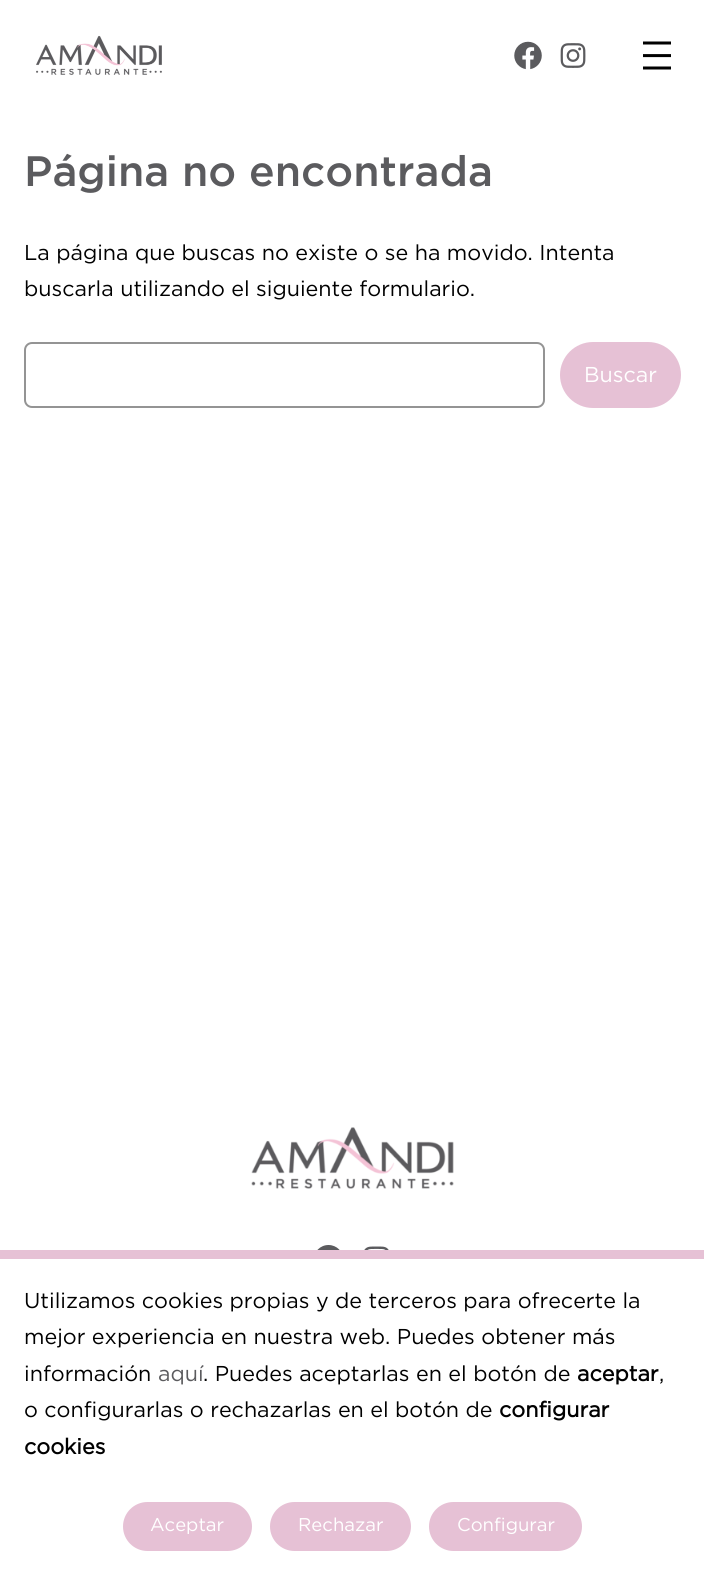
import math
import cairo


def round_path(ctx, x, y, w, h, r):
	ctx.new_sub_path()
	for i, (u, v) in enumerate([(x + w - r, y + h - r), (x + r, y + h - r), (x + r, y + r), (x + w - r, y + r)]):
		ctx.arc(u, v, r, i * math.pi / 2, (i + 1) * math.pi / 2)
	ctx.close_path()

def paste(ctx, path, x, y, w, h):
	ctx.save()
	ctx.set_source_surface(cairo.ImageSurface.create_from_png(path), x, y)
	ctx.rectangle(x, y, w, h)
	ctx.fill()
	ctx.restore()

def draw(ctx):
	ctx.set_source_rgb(1, 1, 1)
	ctx.paint()
	paste(ctx, 'media/1.png', 36, 35, 126, 40)
	paste(ctx, 'media/2.png', 514, 41, 28, 29)
	paste(ctx, 'media/3.png', 560, 43, 26, 25)
	paste(ctx, 'media/4.png', 643, 41, 28, 29)
	ctx.select_font_face('Gotham Medium')
	ctx.set_font_size(42.5)
	ctx.set_source_rgb(0.357, 0.357, 0.369)
	ctx.move_to(24, 186)
	ctx.show_text('Página no encontrada')
	ctx.select_font_face('Gotham')
	ctx.set_font_size(21.5)
	ctx.set_source_rgb(0, 0, 0)
	ctx.move_to(24, 260)
	ctx.show_text('La página que buscas no existe o se ha movido. Intenta')
	ctx.move_to(24, 296)
	ctx.show_text('buscarla utilizando el siguiente formulario.')
	round_path(ctx, 25, 343, 519, 64, 7)
	ctx.set_source_rgb(0.58, 0.58, 0.58)
	ctx.stroke()
	ctx.set_source_rgb(0.902, 0.757, 0.835)
	round_path(ctx, 560, 342, 121, 66, 33)
	ctx.fill()
	ctx.set_source_rgb(1, 1, 1)
	ctx.move_to(584, 382)
	ctx.show_text('Buscar')
	paste(ctx, 'media/5.png', 251, 1127, 203, 62)
	paste(ctx, 'media/6.png', 317, 1245, 23, 5)
	paste(ctx, 'media/7.png', 364, 1246, 25, 4)
	ctx.set_source_rgb(0.902, 0.757, 0.835)
	ctx.rectangle(0, 1250, 704, 9)
	ctx.fill()
	ctx.set_source_rgb(0, 0, 0)
	for x, y, s in [
		(24, 1308, 'Utilizamos cookies propias y de terceros para ofrecerte la'),
		(24, 1344, 'mejor experiencia en nuestra web. Puedes obtener más'),
		(24, 1381, 'información'),
	]:
		ctx.move_to(x, y)
		ctx.show_text(s)
	ctx.set_source_rgb(0.357, 0.357, 0.369)
	ctx.move_to(158, 1381)
	ctx.show_text('aquí')
	ctx.set_source_rgb(0, 0, 0)
	ctx.move_to(203, 1381)
	ctx.show_text('. Puedes aceptarlas en el botón de')
	ctx.select_font_face('Gotham', cairo.FONT_SLANT_NORMAL, cairo.FONT_WEIGHT_BOLD)
	ctx.move_to(577, 1381)
	ctx.show_text('aceptar')
	ctx.select_font_face('Gotham')
	ctx.move_to(659, 1381)
	ctx.show_text(',')
	ctx.move_to(24, 1417)
	ctx.show_text('o configurarlas o rechazarlas en el botón de')
	ctx.select_font_face('Gotham', cairo.FONT_SLANT_NORMAL, cairo.FONT_WEIGHT_BOLD)
	ctx.move_to(499, 1417)
	ctx.show_text('configurar')
	ctx.move_to(24, 1454)
	ctx.show_text('cookies')
	ctx.set_source_rgb(0.902, 0.757, 0.835)
	round_path(ctx, 123, 1502, 129, 49, 24.5)
	ctx.fill()
	ctx.select_font_face('Gotham')
	ctx.set_font_size(18.5)
	ctx.set_source_rgb(1, 1, 1)
	ctx.move_to(150, 1531)
	ctx.show_text('Aceptar')
	ctx.set_source_rgb(0.902, 0.757, 0.835)
	round_path(ctx, 270, 1502, 141, 49, 24.5)
	ctx.fill()
	ctx.set_source_rgb(1, 1, 1)
	ctx.move_to(298, 1531)
	ctx.show_text('Rechazar')
	ctx.set_source_rgb(0.902, 0.757, 0.835)
	round_path(ctx, 429, 1502, 153, 49, 24.5)
	ctx.fill()
	ctx.set_source_rgb(1, 1, 1)
	ctx.move_to(457, 1531)
	ctx.show_text('Configurar')


surface = cairo.ImageSurface(cairo.FORMAT_RGB24, 704, 1575)
ctx = cairo.Context(surface)
options = cairo.FontOptions()
options.set_hint_metrics(cairo.HINT_METRICS_OFF)
options.set_hint_style(cairo.HINT_STYLE_NONE)
ctx.set_font_options(options)
ctx.set_miter_limit(4)
draw(ctx)
surface.write_to_png('image.png')
